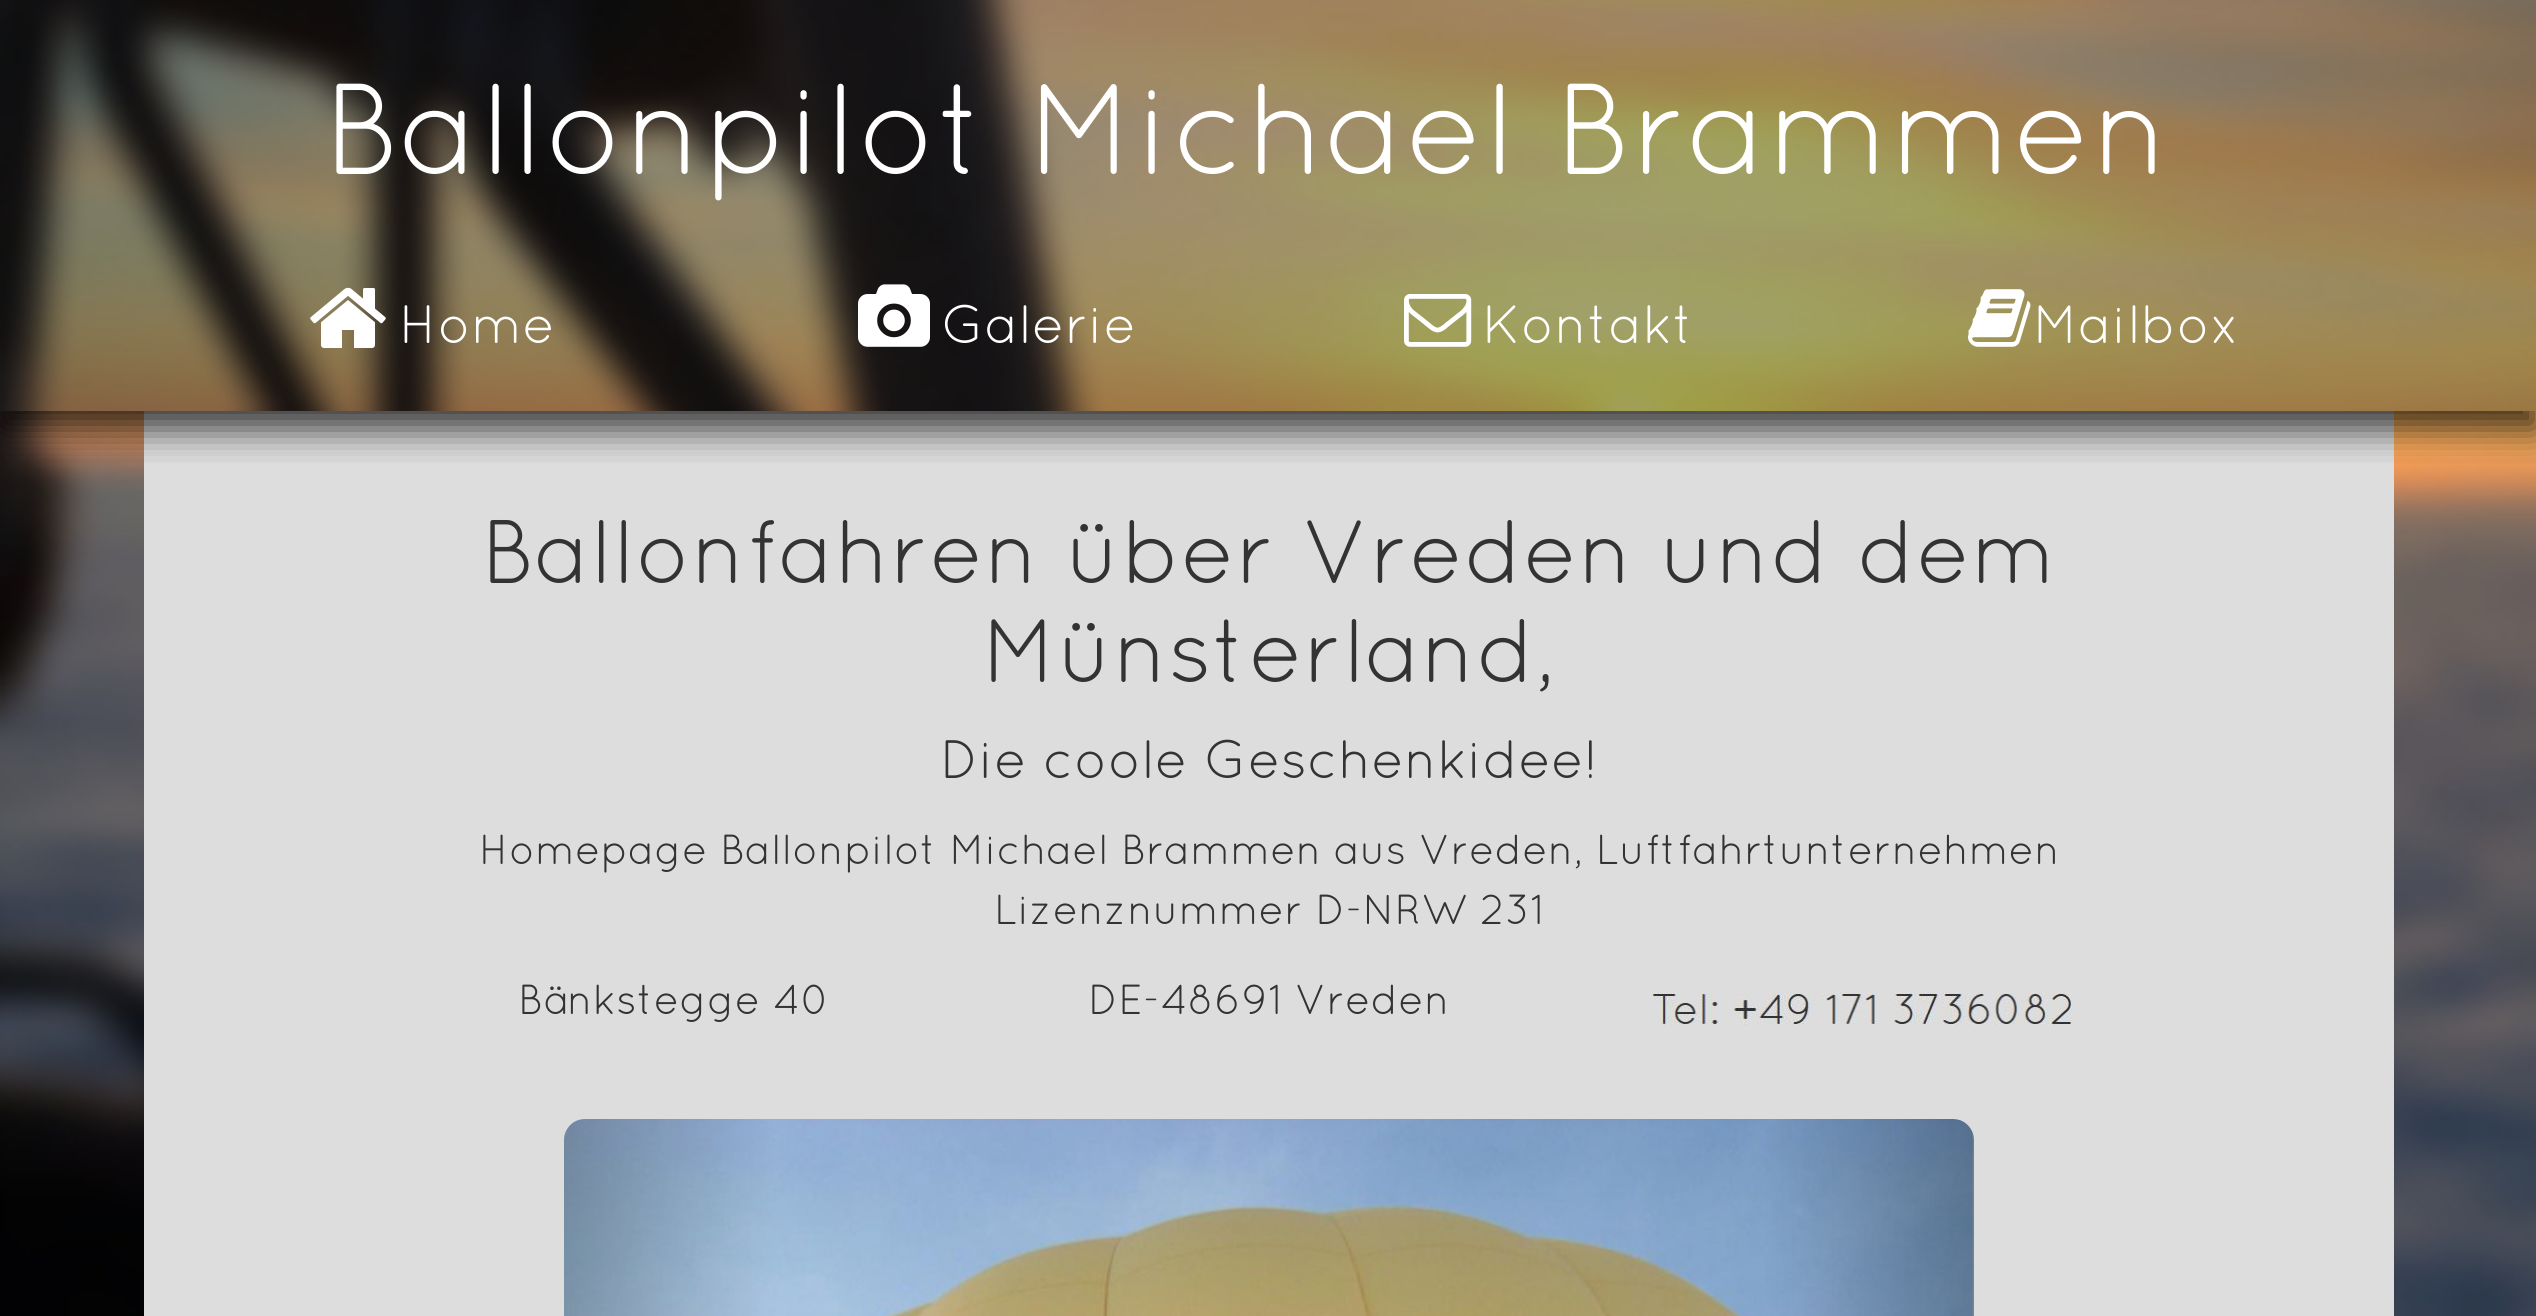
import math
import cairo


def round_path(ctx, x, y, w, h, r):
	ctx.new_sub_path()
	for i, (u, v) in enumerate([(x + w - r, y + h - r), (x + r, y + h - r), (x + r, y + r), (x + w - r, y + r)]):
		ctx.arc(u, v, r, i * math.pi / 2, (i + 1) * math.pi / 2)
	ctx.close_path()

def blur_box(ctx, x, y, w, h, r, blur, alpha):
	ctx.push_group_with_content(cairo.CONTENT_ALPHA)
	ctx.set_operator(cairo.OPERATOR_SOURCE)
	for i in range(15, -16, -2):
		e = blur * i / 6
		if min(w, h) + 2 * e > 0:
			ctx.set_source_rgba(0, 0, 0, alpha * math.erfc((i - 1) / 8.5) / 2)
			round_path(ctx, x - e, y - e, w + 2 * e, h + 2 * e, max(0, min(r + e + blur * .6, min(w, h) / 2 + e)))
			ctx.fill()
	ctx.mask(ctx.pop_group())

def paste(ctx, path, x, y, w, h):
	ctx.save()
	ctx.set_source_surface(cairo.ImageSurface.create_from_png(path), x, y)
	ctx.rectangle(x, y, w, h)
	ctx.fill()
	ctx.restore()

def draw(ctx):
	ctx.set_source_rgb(1, 1, 1)
	ctx.paint()
	paste(ctx, 'media/1.png', 0, 0, 2536, 1316)
	ctx.set_source_rgb(0.867, 0.867, 0.867)
	ctx.rectangle(144, 411, 2250, 905)
	ctx.fill()
	ctx.save()
	ctx.rectangle(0, 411, 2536, 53)
	ctx.clip()
	ctx.set_source_rgb(0, 0, 0)
	blur_box(ctx, 0, 18, 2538, 411, 0, 18, 0.75)
	ctx.restore()
	ctx.set_source_rgba(0.086, 0.086, 0.086, 0.4)
	ctx.rectangle(0, 0, 2536, 411)
	ctx.fill()
	ctx.select_font_face('Quicksand')
	ctx.set_font_size(129)
	ctx.set_source_rgb(1, 1, 1)
	ctx.move_to(323, 174)
	ctx.show_text('Ballonpilot Michael Brammen')
	paste(ctx, 'media/2.png', 310, 287, 76, 61)
	ctx.set_font_size(54)
	ctx.move_to(399, 343)
	ctx.show_text('Home')
	paste(ctx, 'media/3.png', 858, 284, 72, 63)
	ctx.move_to(941, 343)
	ctx.show_text('Galerie')
	paste(ctx, 'media/4.png', 1404, 294, 68, 53)
	ctx.move_to(1482, 343)
	ctx.show_text('Kontakt')
	paste(ctx, 'media/5.png', 1968, 289, 63, 58)
	ctx.move_to(2033, 343)
	ctx.show_text('Mailbox')
	ctx.set_font_size(90)
	ctx.set_source_rgb(0.2, 0.2, 0.2)
	ctx.move_to(481, 583)
	ctx.show_text('Ballonfahren über Vreden und dem')
	ctx.move_to(982, 682)
	ctx.show_text('Münsterland,')
	ctx.set_font_size(54)
	ctx.move_to(940, 778)
	ctx.show_text('Die coole Geschenkidee!')
	ctx.set_font_size(42)
	for x, y, s in [
		(479, 864, 'Homepage Ballonpilot Michael Brammen aus Vreden, Luftfahrtunternehmen'),
		(994, 924, 'Lizenznummer D-NRW 231'),
		(518, 1014, 'Bänkstegge 40'),
		(1088, 1014, 'DE-48691 Vreden'),
	]:
		ctx.move_to(x, y)
		ctx.show_text(s)
	paste(ctx, 'media/6.png', 1653, 993, 420, 33)
	paste(ctx, 'media/7.png', 564, 1119, 1410, 197)
	gradient = cairo.LinearGradient(564, 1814, 777, 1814)
	gradient.add_color_stop_rgba(0, 0, 0, 0, 0.25)
	gradient.add_color_stop_rgba(1, 0, 0, 0, 0)
	ctx.set_source(gradient)
	round_path(ctx, 564, 1119, 213, 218, 21)
	ctx.fill()
	gradient = cairo.LinearGradient(1764, 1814, 1974, 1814)
	gradient.add_color_stop_rgba(0, 0, 0, 0, 0)
	gradient.add_color_stop_rgba(1, 0, 0, 0, 0.25)
	ctx.set_source(gradient)
	round_path(ctx, 1764, 1119, 210, 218, 21)
	ctx.fill()


surface = cairo.ImageSurface(cairo.FORMAT_RGB24, 2536, 1316)
ctx = cairo.Context(surface)
options = cairo.FontOptions()
options.set_hint_metrics(cairo.HINT_METRICS_OFF)
options.set_hint_style(cairo.HINT_STYLE_NONE)
ctx.set_font_options(options)
ctx.set_miter_limit(4)
draw(ctx)
surface.write_to_png('image.png')
